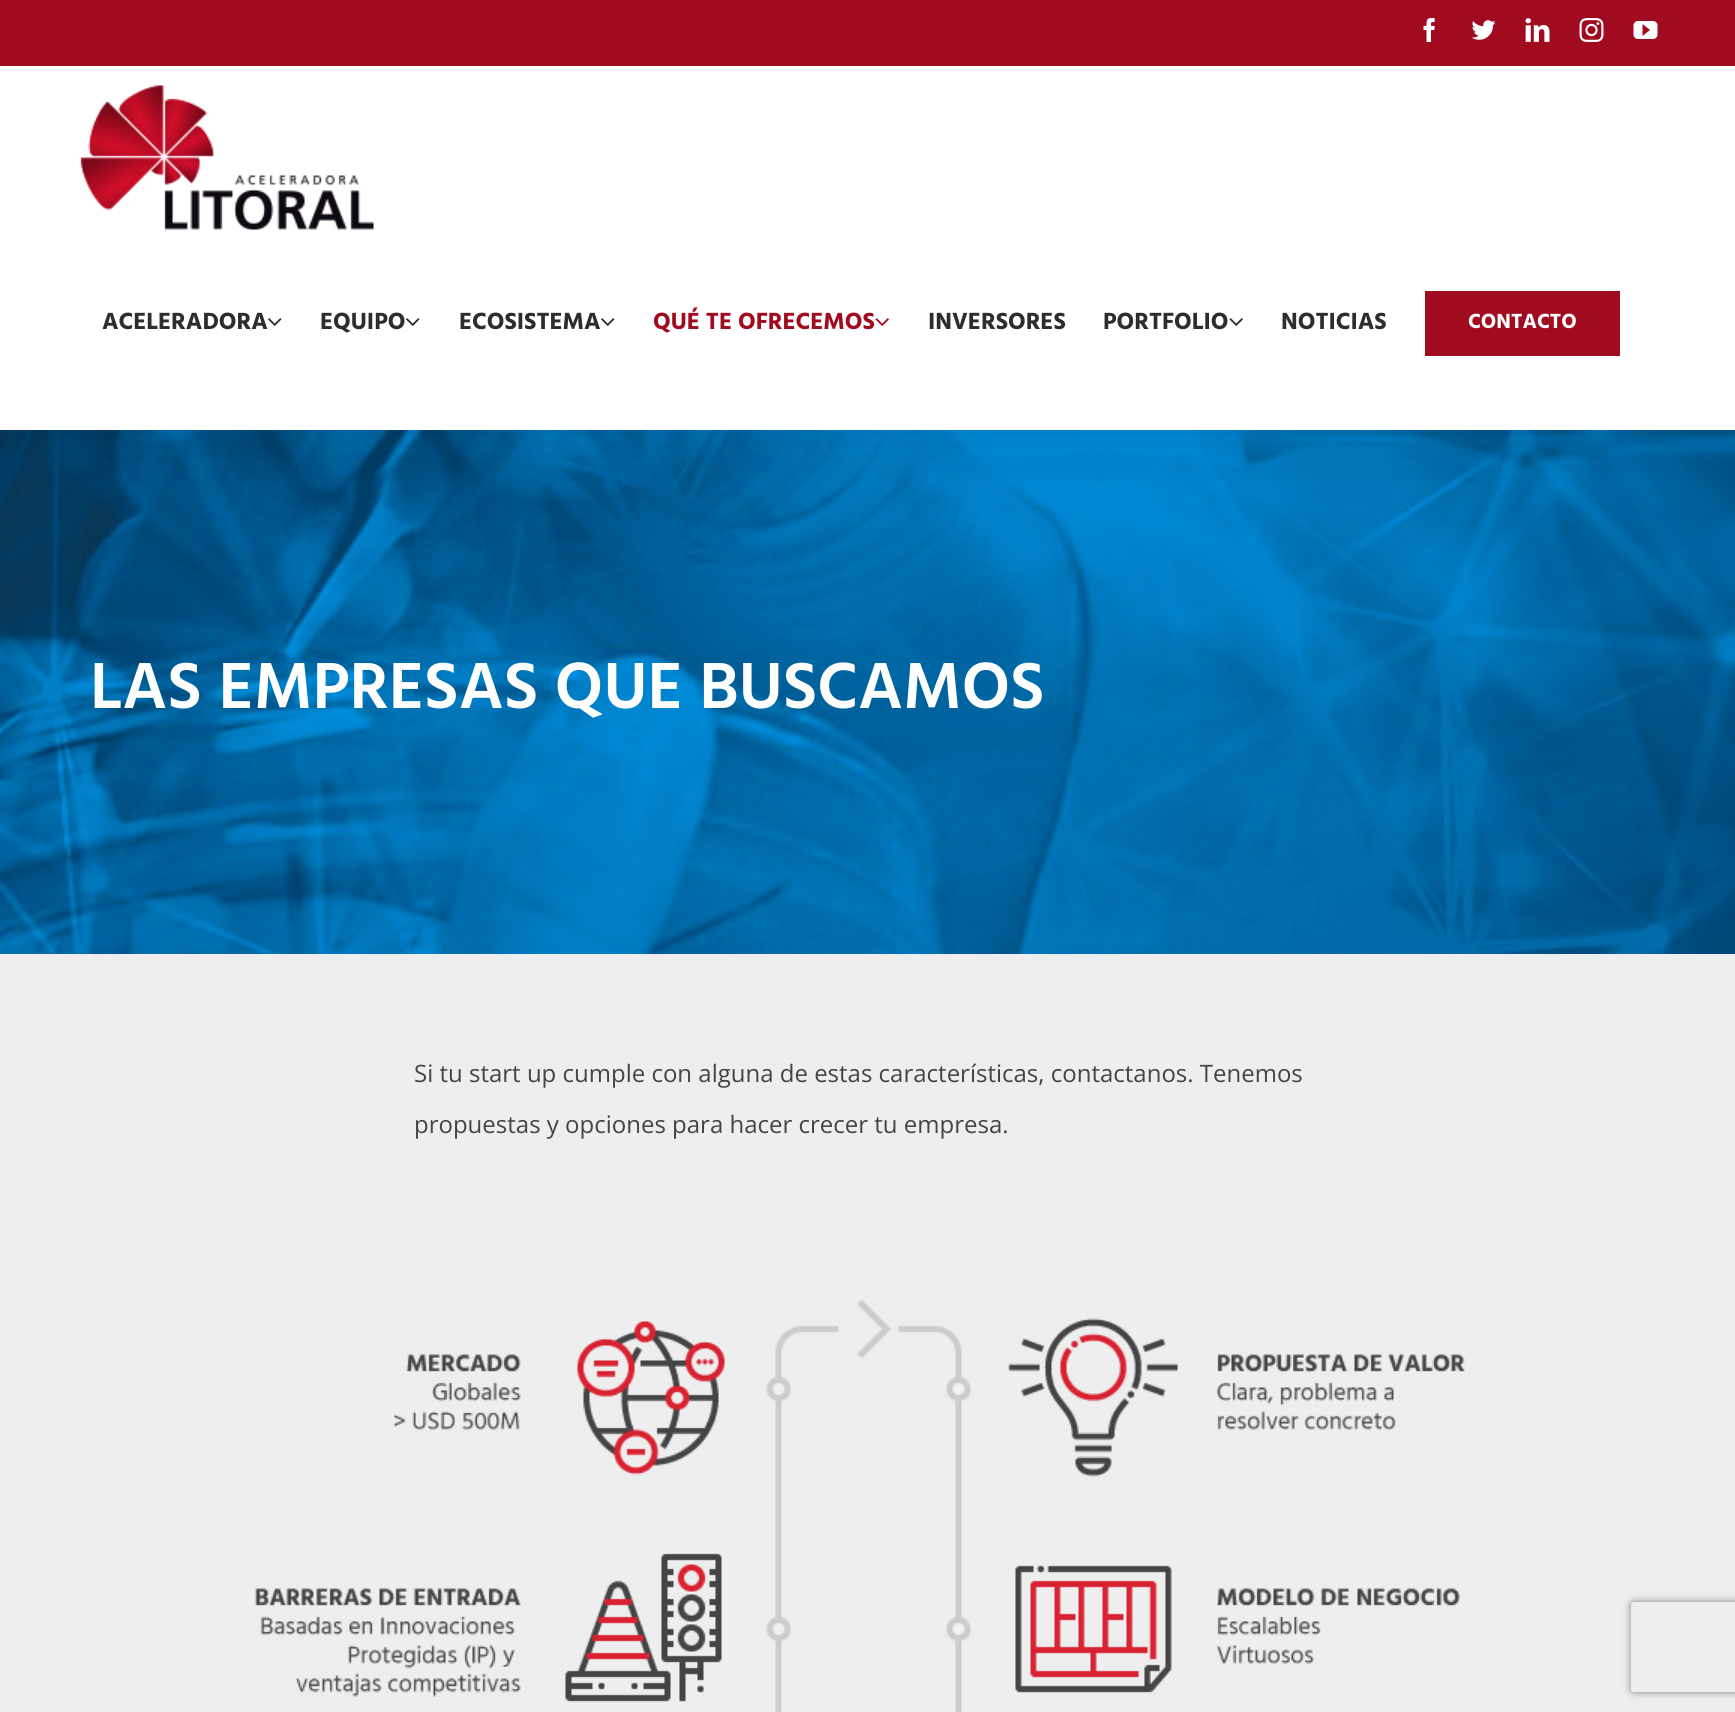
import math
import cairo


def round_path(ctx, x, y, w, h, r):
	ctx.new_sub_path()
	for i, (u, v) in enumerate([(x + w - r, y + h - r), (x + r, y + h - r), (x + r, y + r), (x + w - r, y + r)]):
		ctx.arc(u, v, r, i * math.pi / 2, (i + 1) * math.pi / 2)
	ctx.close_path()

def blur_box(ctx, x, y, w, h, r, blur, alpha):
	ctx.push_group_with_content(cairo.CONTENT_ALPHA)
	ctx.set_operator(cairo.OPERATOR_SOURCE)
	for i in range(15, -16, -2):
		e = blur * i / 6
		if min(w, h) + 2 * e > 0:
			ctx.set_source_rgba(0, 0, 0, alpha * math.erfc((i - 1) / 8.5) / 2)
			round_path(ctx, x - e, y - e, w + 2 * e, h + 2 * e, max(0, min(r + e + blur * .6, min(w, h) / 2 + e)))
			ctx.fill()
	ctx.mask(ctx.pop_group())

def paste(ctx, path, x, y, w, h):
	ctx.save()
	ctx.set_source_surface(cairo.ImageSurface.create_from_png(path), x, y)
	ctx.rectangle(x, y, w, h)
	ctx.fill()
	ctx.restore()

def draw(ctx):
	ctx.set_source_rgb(1, 1, 1)
	ctx.paint()
	paste(ctx, 'media/10.png', 0, 430, 1735, 524)
	ctx.save()
	ctx.rectangle(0, 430, 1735, 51)
	ctx.clip()
	ctx.set_source_rgb(0, 0, 0)
	blur_box(ctx, 3, 18, 1730, 423, 0, 37.5, 0.14)
	ctx.restore()
	ctx.set_source_rgb(0.627, 0.043, 0.125)
	ctx.rectangle(0, 0, 1735, 66)
	ctx.fill()
	paste(ctx, 'media/1.png', 1423, 18, 12, 24)
	paste(ctx, 'media/2.png', 1471, 20, 25, 20)
	paste(ctx, 'media/3.png', 1525, 18, 25, 24)
	paste(ctx, 'media/4.png', 1579, 18, 25, 24)
	paste(ctx, 'media/5.png', 1633, 21, 25, 18)
	ctx.set_source_rgb(1, 1, 1)
	ctx.rectangle(0, 429, 1735, 1)
	ctx.fill()
	paste(ctx, 'media/6.png', 80, 85, 294, 145)
	ctx.select_font_face('Hind', cairo.FONT_SLANT_NORMAL, cairo.FONT_WEIGHT_BOLD)
	ctx.set_font_size(24)
	ctx.set_source_rgb(0.176, 0.176, 0.184)
	ctx.move_to(102, 329)
	ctx.show_text('ACELERADORA')
	paste(ctx, 'media/7.png', 268, 318, 14, 8)
	ctx.move_to(320, 329)
	ctx.show_text('EQUIPO')
	paste(ctx, 'media/7.png', 406, 318, 14, 8)
	ctx.move_to(459, 329)
	ctx.show_text('ECOSISTEMA')
	paste(ctx, 'media/7.png', 601, 318, 14, 8)
	ctx.set_source_rgb(0.627, 0.043, 0.125)
	ctx.move_to(653, 329)
	ctx.show_text('QUÉ TE OFRECEMOS')
	paste(ctx, 'media/8.png', 875, 318, 14, 8)
	ctx.set_source_rgb(0.176, 0.176, 0.184)
	ctx.move_to(928, 329)
	ctx.show_text('INVERSORES')
	ctx.move_to(1103, 329)
	ctx.show_text('PORTFOLIO')
	paste(ctx, 'media/9.png', 1229, 318, 14, 8)
	ctx.move_to(1281, 329)
	ctx.show_text('NOTICIAS')
	ctx.set_source_rgb(0.627, 0.043, 0.125)
	ctx.rectangle(1425, 291, 195, 65)
	ctx.fill()
	ctx.set_font_size(21)
	ctx.set_source_rgb(1, 1, 1)
	ctx.move_to(1468, 328)
	ctx.show_text('CONTACTO')
	ctx.select_font_face('Hind SemiBold')
	ctx.set_font_size(66.75)
	ctx.move_to(90, 708)
	ctx.show_text('LAS EMPRESAS QUE BUSCAMOS')
	ctx.set_source_rgb(0.933, 0.933, 0.933)
	ctx.rectangle(0, 954, 1735, 758)
	ctx.fill()
	ctx.select_font_face('Open Sans')
	ctx.set_font_size(24)
	ctx.set_source_rgb(0.267, 0.267, 0.267)
	ctx.move_to(414, 1082)
	ctx.show_text('Si tu start up cumple con alguna de estas características, contactanos. Tenemos')
	ctx.move_to(414, 1133)
	ctx.show_text('propuestas y opciones para hacer crecer tu empresa.')
	paste(ctx, 'media/11.png', 254, 1299, 1212, 413)
	ctx.save()
	ctx.set_fill_rule(cairo.FILL_RULE_EVEN_ODD)
	ctx.new_path()
	ctx.move_to(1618, 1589)
	ctx.line_to(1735, 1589)
	ctx.line_to(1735, 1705)
	ctx.line_to(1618, 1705)
	ctx.close_path()
	ctx.move_to(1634, 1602)
	ctx.line_to(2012, 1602)
	ctx.curve_to(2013.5, 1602, 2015, 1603.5, 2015, 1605)
	ctx.line_to(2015, 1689)
	ctx.curve_to(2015, 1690.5, 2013.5, 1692, 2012, 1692)
	ctx.line_to(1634, 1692)
	ctx.curve_to(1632.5, 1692, 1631, 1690.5, 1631, 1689)
	ctx.line_to(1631, 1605)
	ctx.curve_to(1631, 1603.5, 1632.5, 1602, 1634, 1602)
	ctx.close_path()
	ctx.clip()
	ctx.set_source_rgb(0.502, 0.502, 0.502)
	blur_box(ctx, 1631, 1602, 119, 90, 3, 4, 1)
	ctx.restore()


surface = cairo.ImageSurface(cairo.FORMAT_RGB24, 1735, 1712)
ctx = cairo.Context(surface)
options = cairo.FontOptions()
options.set_hint_metrics(cairo.HINT_METRICS_OFF)
options.set_hint_style(cairo.HINT_STYLE_NONE)
ctx.set_font_options(options)
ctx.set_miter_limit(4)
draw(ctx)
surface.write_to_png('image.png')
